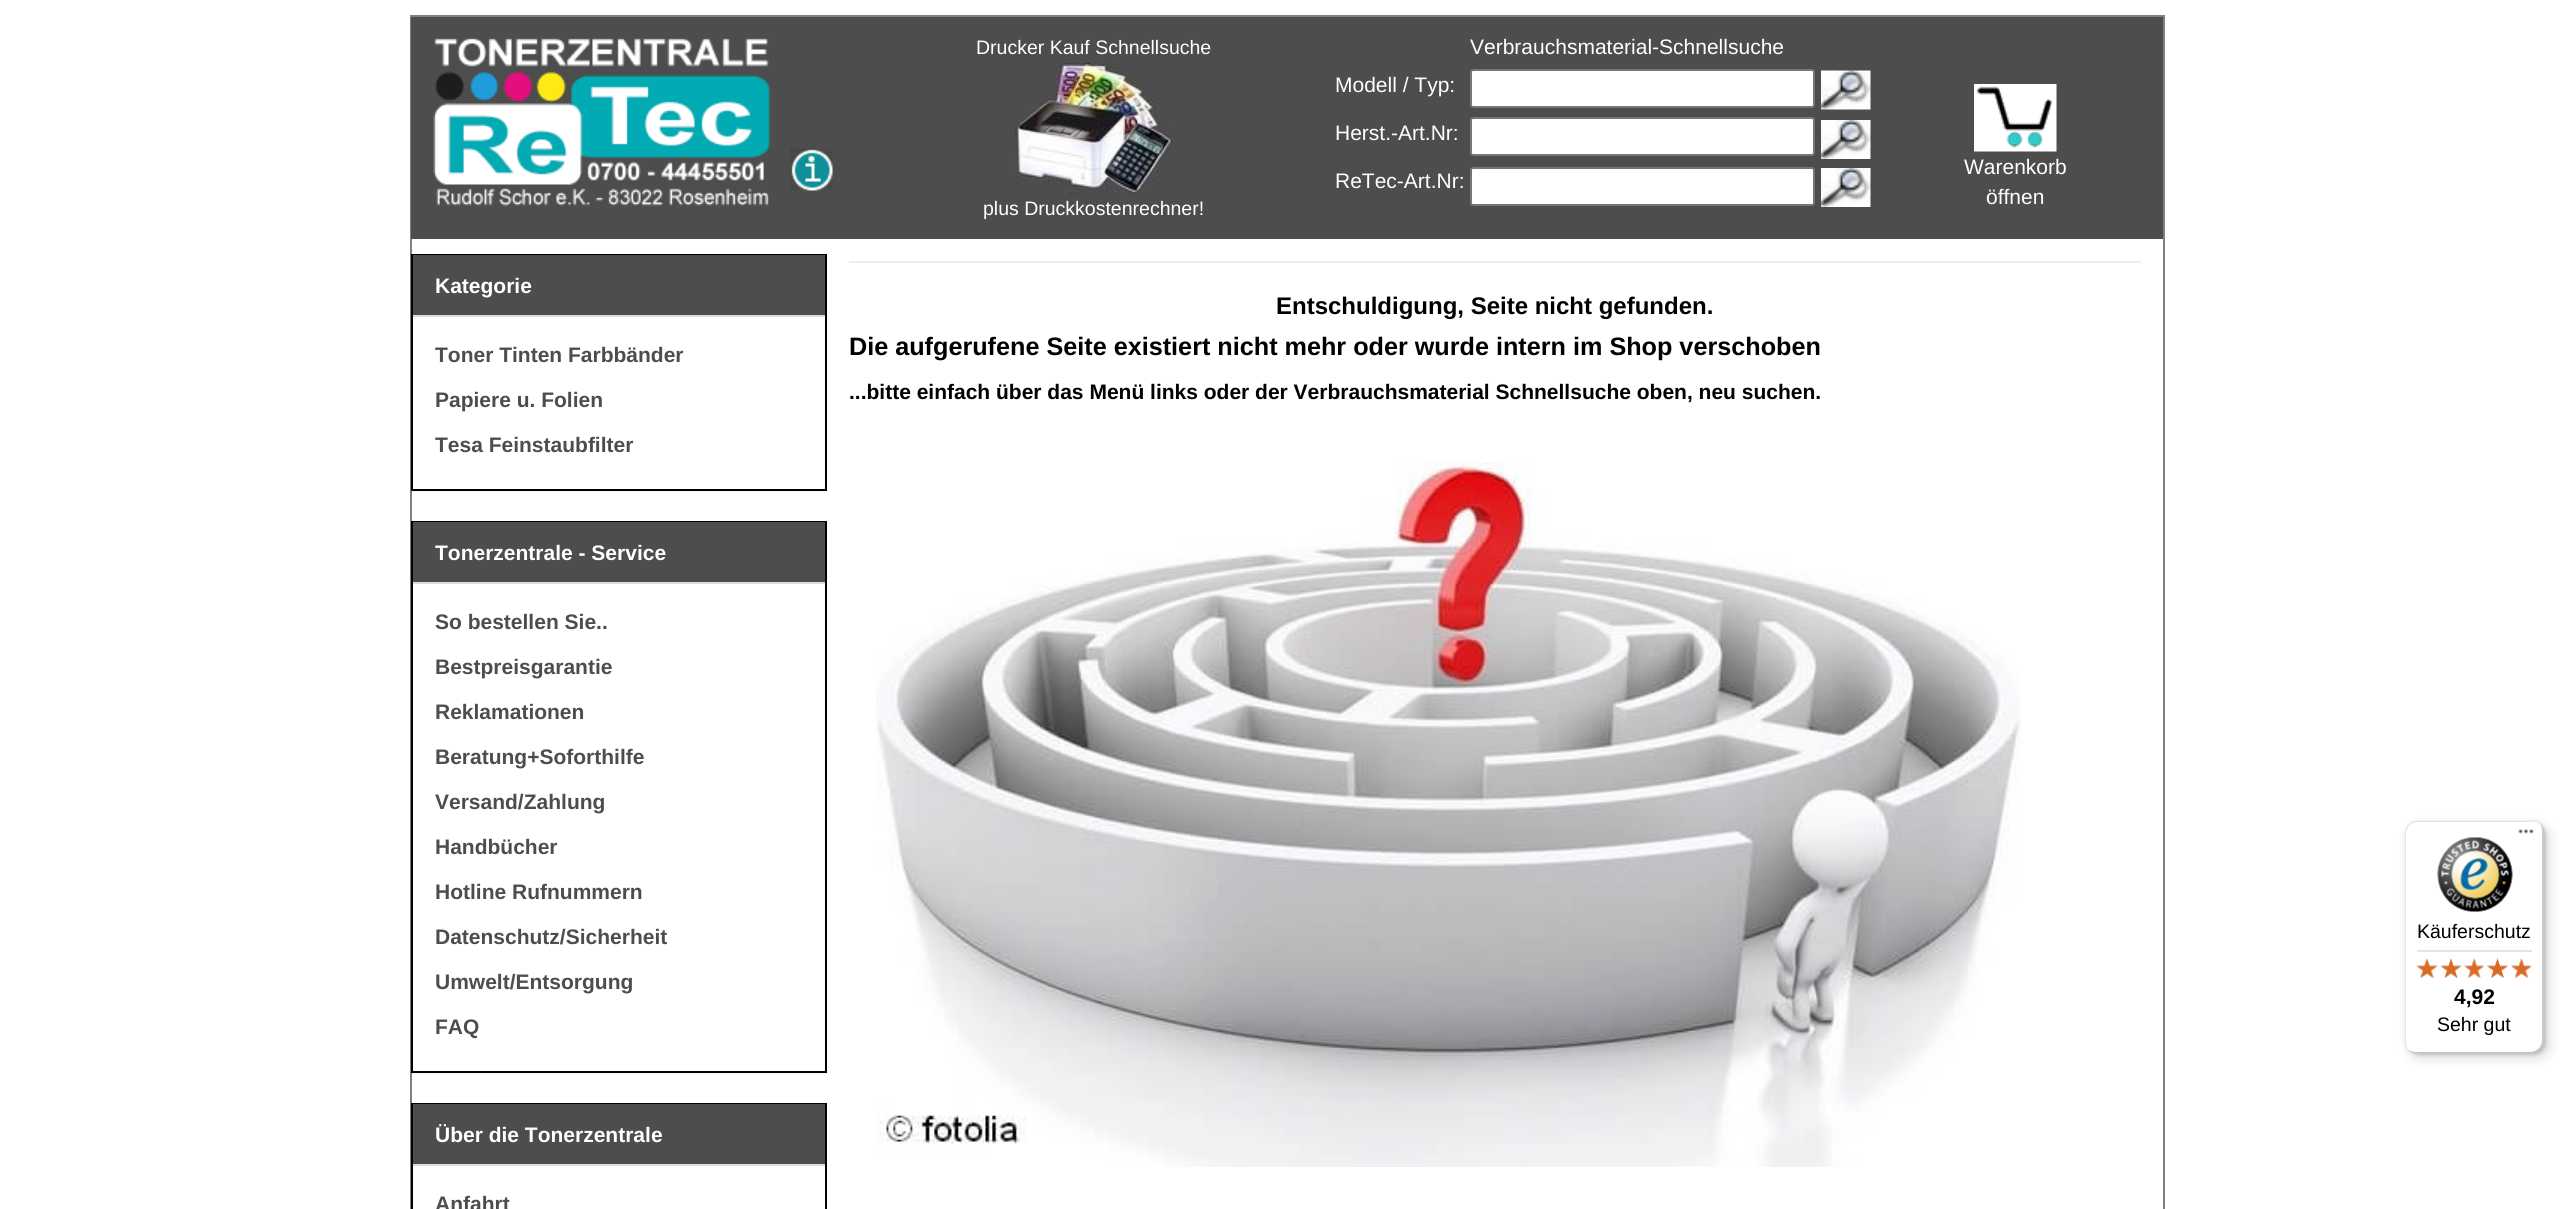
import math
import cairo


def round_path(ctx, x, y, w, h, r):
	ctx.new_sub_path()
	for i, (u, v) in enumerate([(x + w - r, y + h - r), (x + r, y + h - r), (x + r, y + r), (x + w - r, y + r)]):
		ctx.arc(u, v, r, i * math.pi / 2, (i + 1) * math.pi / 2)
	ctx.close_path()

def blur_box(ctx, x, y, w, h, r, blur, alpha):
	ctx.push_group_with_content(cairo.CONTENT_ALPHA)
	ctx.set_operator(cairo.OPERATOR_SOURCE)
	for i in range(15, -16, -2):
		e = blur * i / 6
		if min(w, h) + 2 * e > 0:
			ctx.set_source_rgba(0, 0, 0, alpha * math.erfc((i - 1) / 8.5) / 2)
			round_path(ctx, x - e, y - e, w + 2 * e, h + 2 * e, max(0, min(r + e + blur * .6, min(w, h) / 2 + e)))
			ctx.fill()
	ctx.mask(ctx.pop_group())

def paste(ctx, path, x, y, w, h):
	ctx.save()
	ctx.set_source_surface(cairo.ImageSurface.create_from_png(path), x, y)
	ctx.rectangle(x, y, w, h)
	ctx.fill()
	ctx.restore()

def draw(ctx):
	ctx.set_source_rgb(1, 1, 1)
	ctx.paint()
	ctx.rectangle(411, 16, 1753, 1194)
	ctx.set_source_rgb(0.502, 0.502, 0.502)
	ctx.stroke()
	ctx.set_source_rgb(0.302, 0.302, 0.302)
	ctx.rectangle(411, 17, 1752, 222)
	ctx.fill()
	paste(ctx, 'media/1.png', 433, 38, 337, 168)
	paste(ctx, 'media/2.png', 790, 148, 43, 43)
	ctx.select_font_face('Liberation Sans')
	ctx.set_font_size(19.5)
	ctx.set_source_rgb(1, 1, 1)
	ctx.move_to(976, 54)
	ctx.show_text('Drucker Kauf Schnellsuche')
	paste(ctx, 'media/3.png', 1015, 63, 158, 131)
	ctx.move_to(983, 215)
	ctx.show_text('plus Druckkostenrechner!')
	ctx.set_font_size(21)
	ctx.move_to(1470, 54)
	ctx.show_text('Verbrauchsmaterial-Schnellsuche')
	ctx.move_to(1335, 92)
	ctx.show_text('Modell / Typ:')
	round_path(ctx, 1471, 70, 343, 37, 2)
	ctx.fill_preserve()
	ctx.set_source_rgb(0.463, 0.463, 0.463)
	ctx.stroke()
	paste(ctx, 'media/4.png', 1821, 70, 50, 40)
	ctx.set_source_rgb(1, 1, 1)
	ctx.move_to(1335, 140)
	ctx.show_text('Herst.-Art.Nr:')
	round_path(ctx, 1471, 118, 343, 37, 2)
	ctx.fill_preserve()
	ctx.set_source_rgb(0.463, 0.463, 0.463)
	ctx.stroke()
	paste(ctx, 'media/5.png', 1821, 120, 50, 39)
	ctx.set_source_rgb(1, 1, 1)
	ctx.move_to(1335, 188)
	ctx.show_text('ReTec-Art.Nr:')
	round_path(ctx, 1471, 168, 343, 37, 2)
	ctx.fill_preserve()
	ctx.set_source_rgb(0.463, 0.463, 0.463)
	ctx.stroke()
	paste(ctx, 'media/5.png', 1821, 168, 50, 39)
	paste(ctx, 'media/6.png', 1974, 84, 83, 68)
	ctx.set_source_rgb(1, 1, 1)
	ctx.move_to(1964, 174)
	ctx.show_text('Warenkorb')
	ctx.move_to(1986, 204)
	ctx.show_text('öffnen')
	ctx.set_source_rgb(0, 0, 0)
	blur_box(ctx, 411, 255, 416, 237, 0, 1, 0.05)
	ctx.set_source_rgb(1, 1, 1)
	ctx.rectangle(413, 317, 412, 172)
	ctx.fill()
	ctx.rectangle(412, 255, 414, 235)
	ctx.set_source_rgb(0, 0, 0)
	ctx.stroke()
	ctx.set_source_rgb(0.302, 0.302, 0.302)
	ctx.rectangle(413, 255, 412, 60)
	ctx.fill()
	ctx.set_source_rgb(0.867, 0.867, 0.867)
	ctx.rectangle(413, 315, 412, 2)
	ctx.fill()
	ctx.select_font_face('Liberation Sans', cairo.FONT_SLANT_NORMAL, cairo.FONT_WEIGHT_BOLD)
	ctx.set_source_rgb(1, 1, 1)
	ctx.move_to(435, 293)
	ctx.show_text('Kategorie')
	ctx.set_source_rgb(0.302, 0.302, 0.302)
	for x, y, s in [
		(435, 362, 'Toner Tinten Farbbänder'),
		(435, 407, 'Papiere u. Folien'),
		(435, 452, 'Tesa Feinstaubfilter'),
	]:
		ctx.move_to(x, y)
		ctx.show_text(s)
	ctx.set_source_rgb(0, 0, 0)
	blur_box(ctx, 411, 522, 416, 552, 0, 1, 0.05)
	ctx.set_source_rgb(1, 1, 1)
	ctx.rectangle(413, 584, 412, 487)
	ctx.fill()
	ctx.rectangle(412, 522, 414, 550)
	ctx.set_source_rgb(0, 0, 0)
	ctx.stroke()
	ctx.set_source_rgb(0.302, 0.302, 0.302)
	ctx.rectangle(413, 522, 412, 60)
	ctx.fill()
	ctx.set_source_rgb(0.867, 0.867, 0.867)
	ctx.rectangle(413, 582, 412, 2)
	ctx.fill()
	ctx.set_source_rgb(1, 1, 1)
	ctx.move_to(435, 560)
	ctx.show_text('Tonerzentrale - Service')
	ctx.set_source_rgb(0.302, 0.302, 0.302)
	for x, y, s in [
		(435, 629, 'So bestellen Sie..'),
		(435, 674, 'Bestpreisgarantie'),
		(435, 719, 'Reklamationen'),
		(435, 764, 'Beratung+Soforthilfe'),
		(435, 809, 'Versand/Zahlung'),
		(435, 854, 'Handbücher'),
		(435, 899, 'Hotline Rufnummern'),
		(435, 944, 'Datenschutz/Sicherheit'),
		(435, 989, 'Umwelt/Entsorgung'),
		(435, 1034, 'FAQ'),
	]:
		ctx.move_to(x, y)
		ctx.show_text(s)
	ctx.rectangle(412, 1104, 414, 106)
	ctx.set_source_rgb(0, 0, 0)
	ctx.stroke()
	ctx.set_source_rgb(0.302, 0.302, 0.302)
	ctx.rectangle(413, 1104, 412, 60)
	ctx.fill()
	ctx.set_source_rgb(0.867, 0.867, 0.867)
	ctx.rectangle(413, 1164, 412, 2)
	ctx.fill()
	ctx.set_source_rgb(1, 1, 1)
	ctx.move_to(435, 1142)
	ctx.show_text('Über die Tonerzentrale')
	ctx.set_source_rgb(0.302, 0.302, 0.302)
	ctx.move_to(435, 1211)
	ctx.show_text('Anfahrt')
	ctx.set_source_rgb(0.933, 0.933, 0.933)
	ctx.rectangle(849, 261, 1292, 2)
	ctx.fill()
	ctx.set_font_size(24)
	ctx.set_source_rgb(0, 0, 0)
	ctx.move_to(1276, 314)
	ctx.show_text('Entschuldigung, Seite nicht gefunden.')
	ctx.set_font_size(25.2)
	ctx.move_to(849, 355)
	ctx.show_text('Die aufgerufene Seite existiert nicht mehr oder wurde intern im Shop verschoben')
	ctx.set_font_size(21)
	ctx.move_to(849, 399)
	ctx.show_text('...bitte einfach über das Menü links oder der Verbrauchsmaterial Schnellsuche oben, neu suchen.')
	paste(ctx, 'media/7.png', 876, 461, 1145, 706)
	ctx.set_source_rgb(0, 0, 0)
	blur_box(ctx, 2409, 825, 140, 233, 12, 6, 0.15)
	blur_box(ctx, 2406, 822, 140, 233, 12, 1.5, 0.15)
	ctx.set_source_rgb(1, 1, 1)
	round_path(ctx, 2405, 821, 139, 232, 12)
	ctx.fill()
	ctx.set_source_rgb(0.898, 0.898, 0.898)
	ctx.new_path()
	ctx.move_to(2418, 822)
	ctx.line_to(2534, 822)
	ctx.line_to(2539, 823)
	ctx.curve_to(2537, 822, 2534, 821, 2532, 821)
	ctx.line_to(2417, 821)
	ctx.curve_to(2410, 821, 2405, 826, 2405, 833)
	ctx.line_to(2405, 1041)
	ctx.curve_to(2405, 1044, 2406, 1047, 2408, 1049)
	ctx.curve_to(2407, 1047, 2406, 1045, 2406, 1042)
	ctx.line_to(2406, 834)
	ctx.curve_to(2406, 827, 2411, 822, 2418, 822)
	ctx.close_path()
	ctx.fill()
	ctx.set_source_rgba(0, 0, 0, 0.2)
	ctx.new_path()
	ctx.move_to(2411, 1051)
	ctx.curve_to(2412, 1052, 2415, 1053, 2417, 1053)
	ctx.line_to(2532, 1053)
	ctx.curve_to(2539, 1053, 2544, 1048, 2544, 1041)
	ctx.line_to(2544, 833)
	ctx.curve_to(2544, 829, 2542, 826, 2540, 824)
	ctx.curve_to(2541, 826, 2542, 828, 2542, 831)
	ctx.line_to(2542, 1040)
	ctx.curve_to(2542, 1046, 2537, 1052, 2530, 1052)
	ctx.line_to(2415, 1052)
	ctx.close_path()
	ctx.fill()
	ctx.set_source_rgba(0.196, 0.196, 0.196, 0.2)
	ctx.new_path()
	ctx.move_to(2409, 1050)
	ctx.curve_to(2411, 1052, 2414, 1053, 2417, 1053)
	ctx.line_to(2532, 1053)
	ctx.curve_to(2539, 1053, 2544, 1048, 2544, 1041)
	ctx.line_to(2544, 833)
	ctx.curve_to(2544, 830, 2543, 827, 2541, 825)
	ctx.curve_to(2542, 827, 2543, 829, 2543, 832)
	ctx.line_to(2543, 1040)
	ctx.curve_to(2543, 1047, 2538, 1052, 2531, 1052)
	ctx.line_to(2416, 1052)
	ctx.curve_to(2413, 1052, 2411, 1051, 2409, 1050)
	ctx.close_path()
	ctx.fill()
	ctx.set_source_rgba(1, 1, 1, 0.3)
	ctx.new_path()
	ctx.move_to(2409, 1050)
	ctx.curve_to(2411, 1052, 2414, 1053, 2417, 1053)
	ctx.line_to(2532, 1053)
	ctx.curve_to(2539, 1053, 2544, 1048, 2544, 1041)
	ctx.line_to(2544, 833)
	ctx.curve_to(2544, 830, 2543, 827, 2541, 825)
	ctx.curve_to(2542, 827, 2543, 829, 2543, 832)
	ctx.line_to(2543, 1040)
	ctx.curve_to(2543, 1047, 2538, 1052, 2531, 1052)
	ctx.line_to(2416, 1052)
	ctx.curve_to(2413, 1052, 2411, 1051, 2409, 1050)
	ctx.close_path()
	ctx.fill()
	paste(ctx, 'media/8.png', 2518, 829, 16, 5)
	paste(ctx, 'media/9.png', 2437, 837, 76, 75)
	ctx.select_font_face('Liberation Sans')
	ctx.set_font_size(19.5)
	ctx.set_source_rgb(0, 0, 0)
	ctx.move_to(2417, 938)
	ctx.show_text('Käuferschutz')
	ctx.set_source_rgb(0.898, 0.898, 0.898)
	ctx.rectangle(2417, 950, 115, 2)
	ctx.fill()
	paste(ctx, 'media/15.png', 2417, 959, 20, 19)
	paste(ctx, 'media/10.png', 2416, 958, 22, 20)
	paste(ctx, 'media/16.png', 2441, 958, 20, 20)
	paste(ctx, 'media/11.png', 2441, 958, 20, 20)
	paste(ctx, 'media/17.png', 2464, 958, 20, 20)
	paste(ctx, 'media/12.png', 2464, 958, 20, 20)
	paste(ctx, 'media/18.png', 2487, 958, 21, 20)
	paste(ctx, 'media/13.png', 2487, 958, 21, 20)
	paste(ctx, 'media/19.png', 2511, 959, 21, 19)
	paste(ctx, 'media/14.png', 2511, 958, 20, 20)
	ctx.select_font_face('Liberation Sans', cairo.FONT_SLANT_NORMAL, cairo.FONT_WEIGHT_BOLD)
	ctx.set_font_size(21)
	ctx.set_source_rgb(0, 0, 0)
	ctx.move_to(2454, 1004)
	ctx.show_text('4,92')
	ctx.select_font_face('Liberation Sans')
	ctx.set_font_size(19.5)
	ctx.move_to(2437, 1031)
	ctx.show_text('Sehr gut')


surface = cairo.ImageSurface(cairo.FORMAT_RGB24, 2574, 1209)
ctx = cairo.Context(surface)
options = cairo.FontOptions()
options.set_hint_metrics(cairo.HINT_METRICS_OFF)
options.set_hint_style(cairo.HINT_STYLE_NONE)
ctx.set_font_options(options)
ctx.set_miter_limit(4)
draw(ctx)
surface.write_to_png('image.png')
